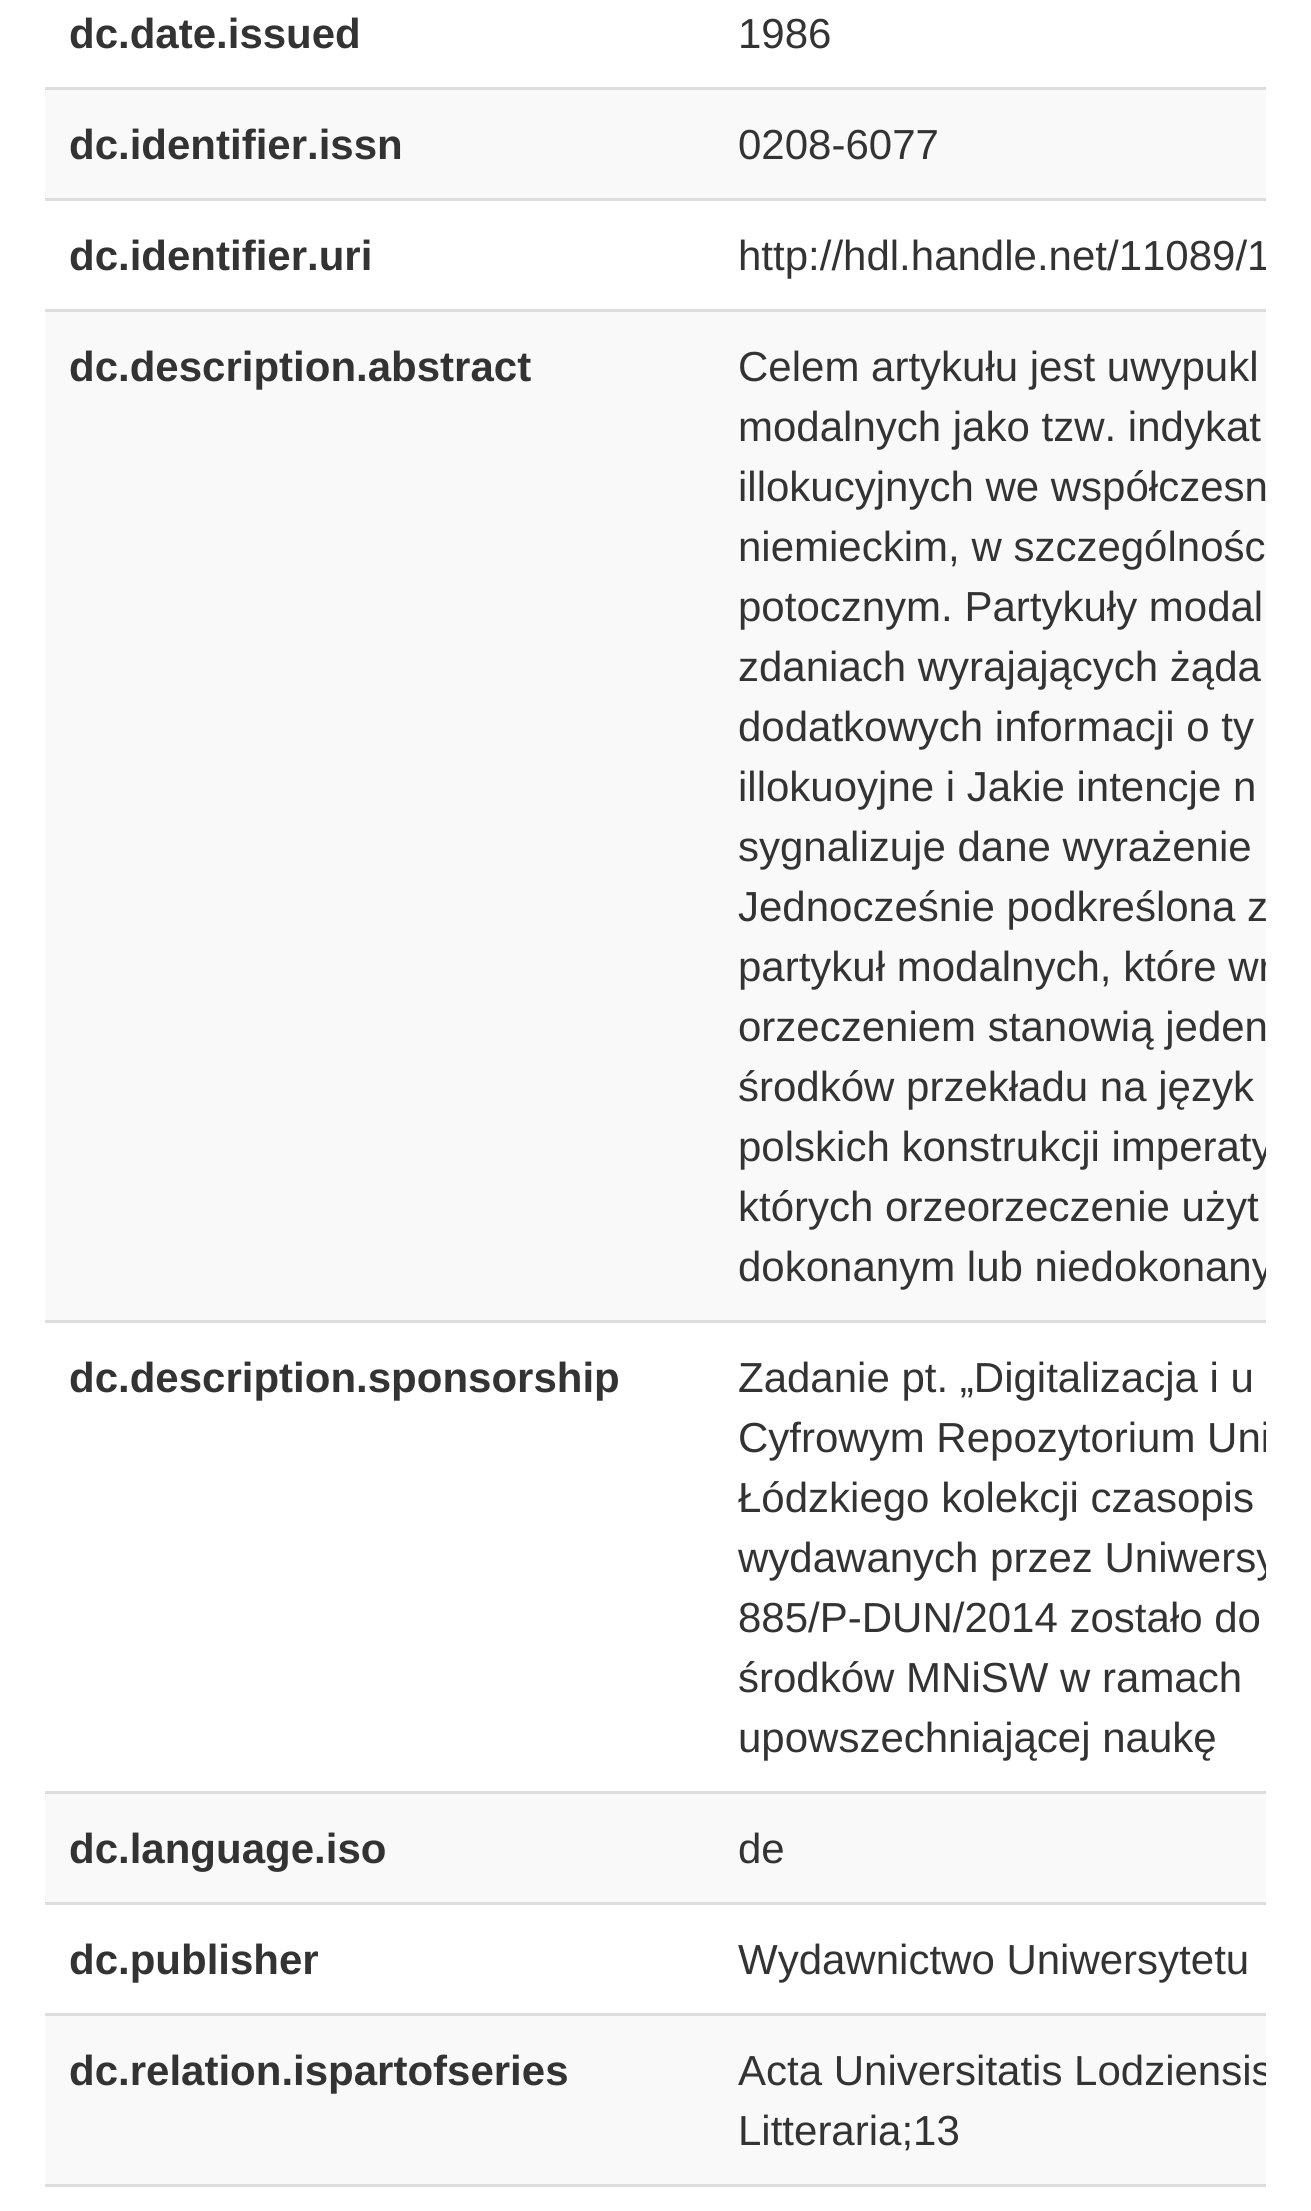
import math
import cairo


def draw(ctx):
	ctx.set_source_rgb(1, 1, 1)
	ctx.paint()
	ctx.select_font_face('Liberation Sans', cairo.FONT_SLANT_NORMAL, cairo.FONT_WEIGHT_BOLD)
	ctx.set_font_size(42)
	ctx.set_source_rgb(0.2, 0.2, 0.2)
	ctx.move_to(69, 48)
	ctx.show_text('dc.date.issued')
	ctx.select_font_face('Liberation Sans')
	ctx.move_to(738, 48)
	ctx.show_text('1986')
	ctx.set_source_rgb(0.976, 0.976, 0.976)
	ctx.rectangle(45, 90, 1221, 108)
	ctx.fill()
	ctx.select_font_face('Liberation Sans', cairo.FONT_SLANT_NORMAL, cairo.FONT_WEIGHT_BOLD)
	ctx.set_source_rgb(0.2, 0.2, 0.2)
	ctx.move_to(69, 159)
	ctx.show_text('dc.identifier.issn')
	ctx.set_source_rgb(0.867, 0.867, 0.867)
	ctx.rectangle(45, 87, 1221, 3)
	ctx.fill()
	ctx.select_font_face('Liberation Sans')
	ctx.set_source_rgb(0.2, 0.2, 0.2)
	ctx.move_to(738, 159)
	ctx.show_text('0208-6077')
	ctx.select_font_face('Liberation Sans', cairo.FONT_SLANT_NORMAL, cairo.FONT_WEIGHT_BOLD)
	ctx.move_to(69, 270)
	ctx.show_text('dc.identifier.uri')
	ctx.set_source_rgb(0.867, 0.867, 0.867)
	ctx.rectangle(45, 198, 1221, 3)
	ctx.fill()
	ctx.save()
	ctx.rectangle(45, 0, 1221, 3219)
	ctx.clip()
	ctx.select_font_face('Liberation Sans')
	ctx.set_source_rgb(0.2, 0.2, 0.2)
	ctx.move_to(738, 270)
	ctx.show_text('http://hdl.handle.net/11089/1')
	ctx.restore()
	ctx.set_source_rgb(0.976, 0.976, 0.976)
	ctx.rectangle(45, 312, 1221, 1008)
	ctx.fill()
	ctx.set_source_rgb(0.2, 0.2, 0.2)
	ctx.move_to(69, 381)
	ctx.show_text('dc.description.abstract')
	ctx.set_source_rgb(0.867, 0.867, 0.867)
	ctx.rectangle(45, 309, 1221, 3)
	ctx.fill()
	ctx.select_font_face('Liberation Sans')
	ctx.set_source_rgb(0.2, 0.2, 0.2)
	for x, y, s in [
		(738, 381, 'Celem artykułu jest uwypukl'),
		(738, 441, 'modalnych jako tzw. indykat'),
		(738, 501, 'illokucyjnych we współczesn'),
		(738, 561, 'niemieckim, w szczególnośc'),
		(738, 621, 'potocznym. Partykuły modal'),
		(738, 681, 'zdaniach wyrajających żąda'),
		(738, 741, 'dodatkowych informacji o ty'),
		(738, 801, 'illokuoyjne i Jakie intencje n'),
		(738, 861, 'sygnalizuje dane wyrażenie'),
		(738, 921, 'Jednocześnie podkreślona z'),
	]:
		ctx.move_to(x, y)
		ctx.show_text(s)
	ctx.save()
	ctx.rectangle(45, 0, 1221, 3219)
	ctx.clip()
	ctx.move_to(738, 981)
	ctx.show_text('partykuł modalnych, które wr')
	ctx.restore()
	ctx.move_to(738, 1041)
	ctx.show_text('orzeczeniem stanowią jeden')
	ctx.move_to(738, 1101)
	ctx.show_text('środków przekładu na język')
	ctx.save()
	ctx.rectangle(45, 0, 1221, 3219)
	ctx.clip()
	ctx.move_to(738, 1161)
	ctx.show_text('polskich konstrukcji imperaty')
	ctx.restore()
	ctx.move_to(738, 1221)
	ctx.show_text('których orzeorzeczenie użyt')
	ctx.save()
	ctx.rectangle(45, 0, 1221, 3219)
	ctx.clip()
	ctx.move_to(738, 1281)
	ctx.show_text('dokonanym lub niedokonany')
	ctx.restore()
	ctx.select_font_face('Liberation Sans', cairo.FONT_SLANT_NORMAL, cairo.FONT_WEIGHT_BOLD)
	ctx.move_to(69, 1392)
	ctx.show_text('dc.description.sponsorship')
	ctx.set_source_rgb(0.867, 0.867, 0.867)
	ctx.rectangle(45, 1320, 1221, 3)
	ctx.fill()
	ctx.select_font_face('Liberation Sans')
	ctx.set_source_rgb(0.2, 0.2, 0.2)
	ctx.move_to(738, 1392)
	ctx.show_text('Zadanie pt. „Digitalizacja i u')
	ctx.save()
	ctx.rectangle(45, 0, 1221, 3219)
	ctx.clip()
	ctx.move_to(738, 1452)
	ctx.show_text('Cyfrowym Repozytorium Uni')
	ctx.restore()
	ctx.move_to(738, 1512)
	ctx.show_text('Łódzkiego kolekcji czasopis')
	ctx.save()
	ctx.rectangle(45, 0, 1221, 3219)
	ctx.clip()
	ctx.move_to(738, 1572)
	ctx.show_text('wydawanych przez Uniwersy')
	ctx.restore()
	for x, y, s in [
		(738, 1632, '885/P-DUN/2014 zostało do'),
		(738, 1692, 'środków MNiSW w ramach'),
		(738, 1752, 'upowszechniającej naukę'),
	]:
		ctx.move_to(x, y)
		ctx.show_text(s)
	ctx.set_source_rgb(0.976, 0.976, 0.976)
	ctx.rectangle(45, 1794, 1221, 108)
	ctx.fill()
	ctx.select_font_face('Liberation Sans', cairo.FONT_SLANT_NORMAL, cairo.FONT_WEIGHT_BOLD)
	ctx.set_source_rgb(0.2, 0.2, 0.2)
	ctx.move_to(69, 1863)
	ctx.show_text('dc.language.iso')
	ctx.set_source_rgb(0.867, 0.867, 0.867)
	ctx.rectangle(45, 1791, 1221, 3)
	ctx.fill()
	ctx.select_font_face('Liberation Sans')
	ctx.set_source_rgb(0.2, 0.2, 0.2)
	ctx.move_to(738, 1863)
	ctx.show_text('de')
	ctx.select_font_face('Liberation Sans', cairo.FONT_SLANT_NORMAL, cairo.FONT_WEIGHT_BOLD)
	ctx.move_to(69, 1974)
	ctx.show_text('dc.publisher')
	ctx.set_source_rgb(0.867, 0.867, 0.867)
	ctx.rectangle(45, 1902, 1221, 3)
	ctx.fill()
	ctx.select_font_face('Liberation Sans')
	ctx.set_source_rgb(0.2, 0.2, 0.2)
	ctx.move_to(738, 1974)
	ctx.show_text('Wydawnictwo Uniwersytetu')
	ctx.set_source_rgb(0.976, 0.976, 0.976)
	ctx.rectangle(45, 2016, 1221, 168)
	ctx.fill()
	ctx.select_font_face('Liberation Sans', cairo.FONT_SLANT_NORMAL, cairo.FONT_WEIGHT_BOLD)
	ctx.set_source_rgb(0.2, 0.2, 0.2)
	ctx.move_to(69, 2085)
	ctx.show_text('dc.relation.ispartofseries')
	ctx.set_source_rgb(0.867, 0.867, 0.867)
	ctx.rectangle(45, 2013, 1221, 3)
	ctx.fill()
	ctx.save()
	ctx.rectangle(45, 0, 1221, 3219)
	ctx.clip()
	ctx.select_font_face('Liberation Sans')
	ctx.set_source_rgb(0.2, 0.2, 0.2)
	ctx.move_to(738, 2085)
	ctx.show_text('Acta Universitatis Lodziensis')
	ctx.restore()
	ctx.select_font_face('Liberation Sans')
	ctx.set_source_rgb(0.2, 0.2, 0.2)
	ctx.move_to(738, 2145)
	ctx.show_text('Litteraria;13')
	ctx.set_source_rgb(0.867, 0.867, 0.867)
	ctx.rectangle(45, 2184, 1221, 3)
	ctx.fill()


surface = cairo.ImageSurface(cairo.FORMAT_RGB24, 1311, 2211)
ctx = cairo.Context(surface)
options = cairo.FontOptions()
options.set_hint_metrics(cairo.HINT_METRICS_OFF)
options.set_hint_style(cairo.HINT_STYLE_NONE)
ctx.set_font_options(options)
ctx.set_miter_limit(4)
draw(ctx)
surface.write_to_png('image.png')
